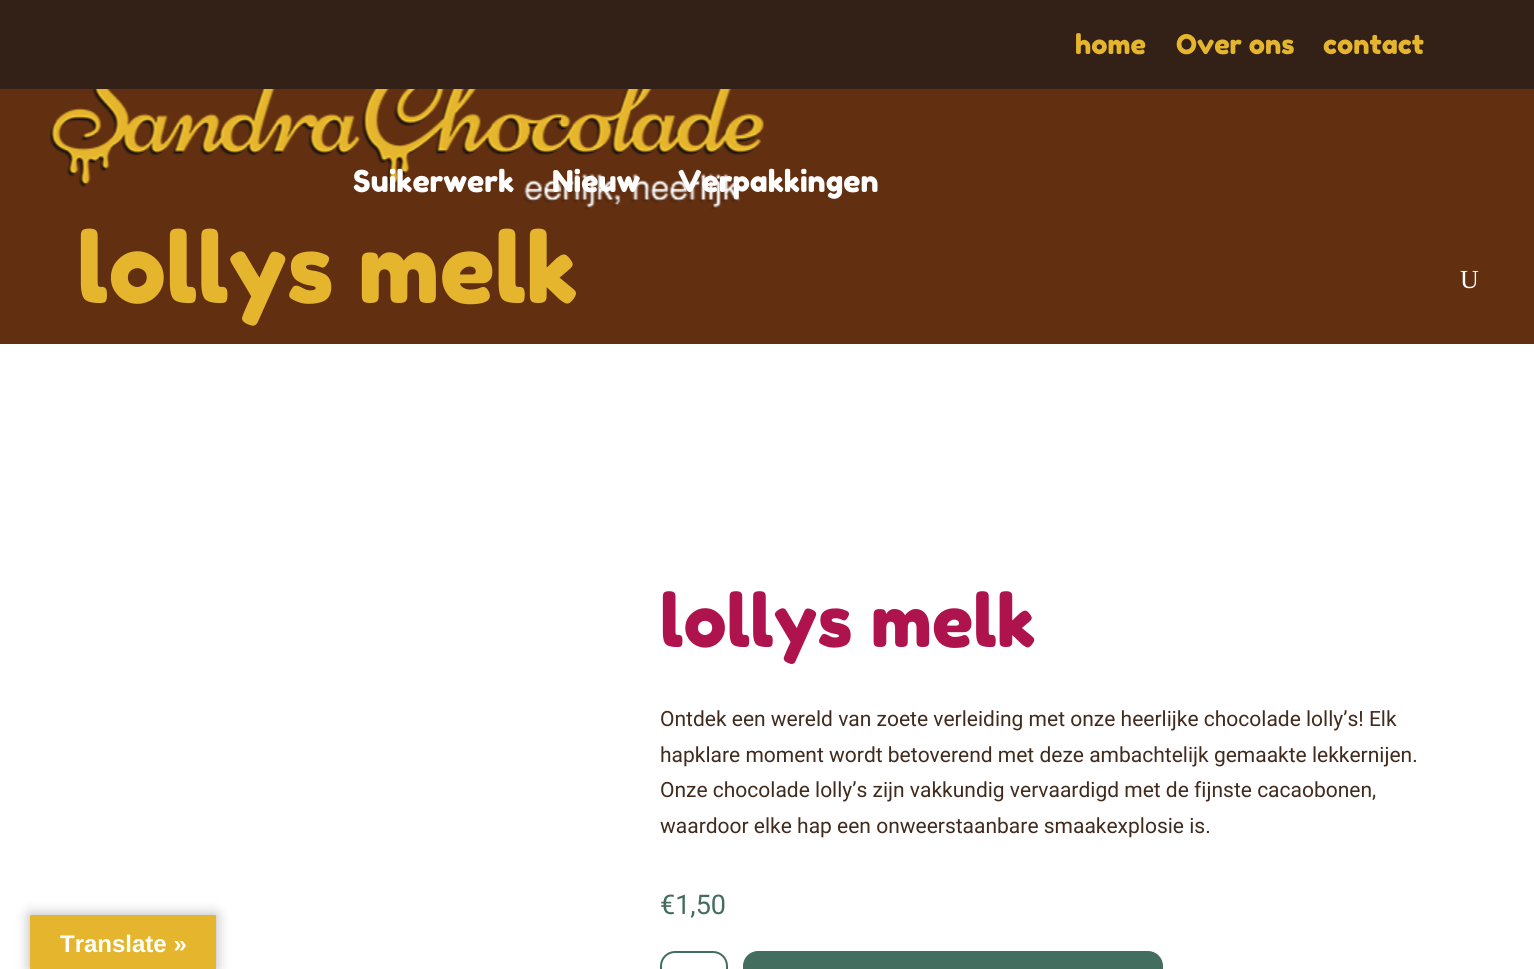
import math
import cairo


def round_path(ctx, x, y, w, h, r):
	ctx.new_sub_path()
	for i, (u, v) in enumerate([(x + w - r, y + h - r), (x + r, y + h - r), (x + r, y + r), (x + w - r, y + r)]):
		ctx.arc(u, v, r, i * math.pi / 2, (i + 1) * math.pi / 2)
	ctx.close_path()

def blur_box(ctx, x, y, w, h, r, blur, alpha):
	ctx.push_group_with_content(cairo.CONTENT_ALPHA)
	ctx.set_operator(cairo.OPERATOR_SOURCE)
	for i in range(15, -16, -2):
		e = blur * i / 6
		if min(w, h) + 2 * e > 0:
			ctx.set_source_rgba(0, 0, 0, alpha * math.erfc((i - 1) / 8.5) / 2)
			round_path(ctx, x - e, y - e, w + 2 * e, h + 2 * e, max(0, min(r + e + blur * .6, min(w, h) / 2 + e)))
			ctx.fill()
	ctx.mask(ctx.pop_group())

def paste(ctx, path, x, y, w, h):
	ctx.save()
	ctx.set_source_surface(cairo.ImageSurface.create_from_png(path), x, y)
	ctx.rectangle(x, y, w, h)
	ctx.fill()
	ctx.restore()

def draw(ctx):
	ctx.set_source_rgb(1, 1, 1)
	ctx.paint()
	ctx.set_source_rgb(0.2, 0.129, 0.09)
	ctx.rectangle(0, 0, 1534, 89)
	ctx.fill()
	ctx.select_font_face('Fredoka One')
	ctx.set_font_size(27)
	ctx.set_source_rgb(0.898, 0.714, 0.176)
	for x, y, s in [
		(1075, 54, 'home'),
		(1176, 54, 'Over ons'),
		(1323, 54, 'contact'),
	]:
		ctx.move_to(x, y)
		ctx.show_text(s)
	ctx.set_source_rgb(0.384, 0.184, 0.067)
	ctx.rectangle(0, 89, 1534, 255)
	ctx.fill()
	paste(ctx, 'media/1.png', 50, 89, 714, 121)
	ctx.set_font_size(30)
	ctx.set_source_rgb(1, 1, 1)
	for x, y, s in [
		(353, 192, 'Suikerwerk'),
		(552, 192, 'Nieuw'),
		(678, 192, 'Verpakkingen'),
	]:
		ctx.move_to(x, y)
		ctx.show_text(s)
	ctx.select_font_face('Liberation Serif')
	ctx.set_font_size(26)
	ctx.move_to(1460, 288)
	ctx.show_text('U')
	ctx.select_font_face('Fredoka One')
	ctx.set_font_size(96)
	ctx.set_source_rgb(0.898, 0.714, 0.176)
	ctx.move_to(77, 303)
	ctx.show_text('lollys melk')
	ctx.set_font_size(72)
	ctx.set_source_rgb(0.686, 0.078, 0.302)
	ctx.move_to(660, 647)
	ctx.show_text('lollys melk')
	ctx.select_font_face('Roboto')
	ctx.set_font_size(21)
	ctx.set_source_rgb(0.255, 0.169, 0.118)
	for x, y, s in [
		(660, 726, 'Ontdek een wereld van zoete verleiding met onze heerlijke chocolade lolly’s! Elk'),
		(660, 762, 'hapklare moment wordt betoverend met deze ambachtelijk gemaakte lekkernijen.'),
		(660, 797, 'Onze chocolade lolly’s zijn vakkundig vervaardigd met de fijnste cacaobonen,'),
		(660, 833, 'waardoor elke hap een onweerstaanbare smaakexplosie is.'),
	]:
		ctx.move_to(x, y)
		ctx.show_text(s)
	ctx.set_font_size(27)
	ctx.set_source_rgb(0.263, 0.427, 0.369)
	ctx.move_to(660, 914)
	ctx.show_text('€1,50')
	round_path(ctx, 661, 952, 66, 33, 14)
	ctx.stroke()
	round_path(ctx, 743, 951, 420, 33, 15)
	ctx.fill()
	ctx.set_source_rgb(0, 0, 0)
	blur_box(ctx, 30, 915, 186, 54, 0, 7, 0.3)
	ctx.set_source_rgb(0.898, 0.714, 0.176)
	ctx.rectangle(30, 915, 186, 54)
	ctx.fill()
	ctx.select_font_face('Liberation Sans', cairo.FONT_SLANT_NORMAL, cairo.FONT_WEIGHT_BOLD)
	ctx.set_font_size(24)
	ctx.set_source_rgb(1, 1, 1)
	ctx.move_to(60, 952)
	ctx.show_text('Translate »')


surface = cairo.ImageSurface(cairo.FORMAT_RGB24, 1534, 969)
ctx = cairo.Context(surface)
options = cairo.FontOptions()
options.set_hint_metrics(cairo.HINT_METRICS_OFF)
options.set_hint_style(cairo.HINT_STYLE_NONE)
ctx.set_font_options(options)
ctx.set_miter_limit(4)
draw(ctx)
surface.write_to_png('image.png')
